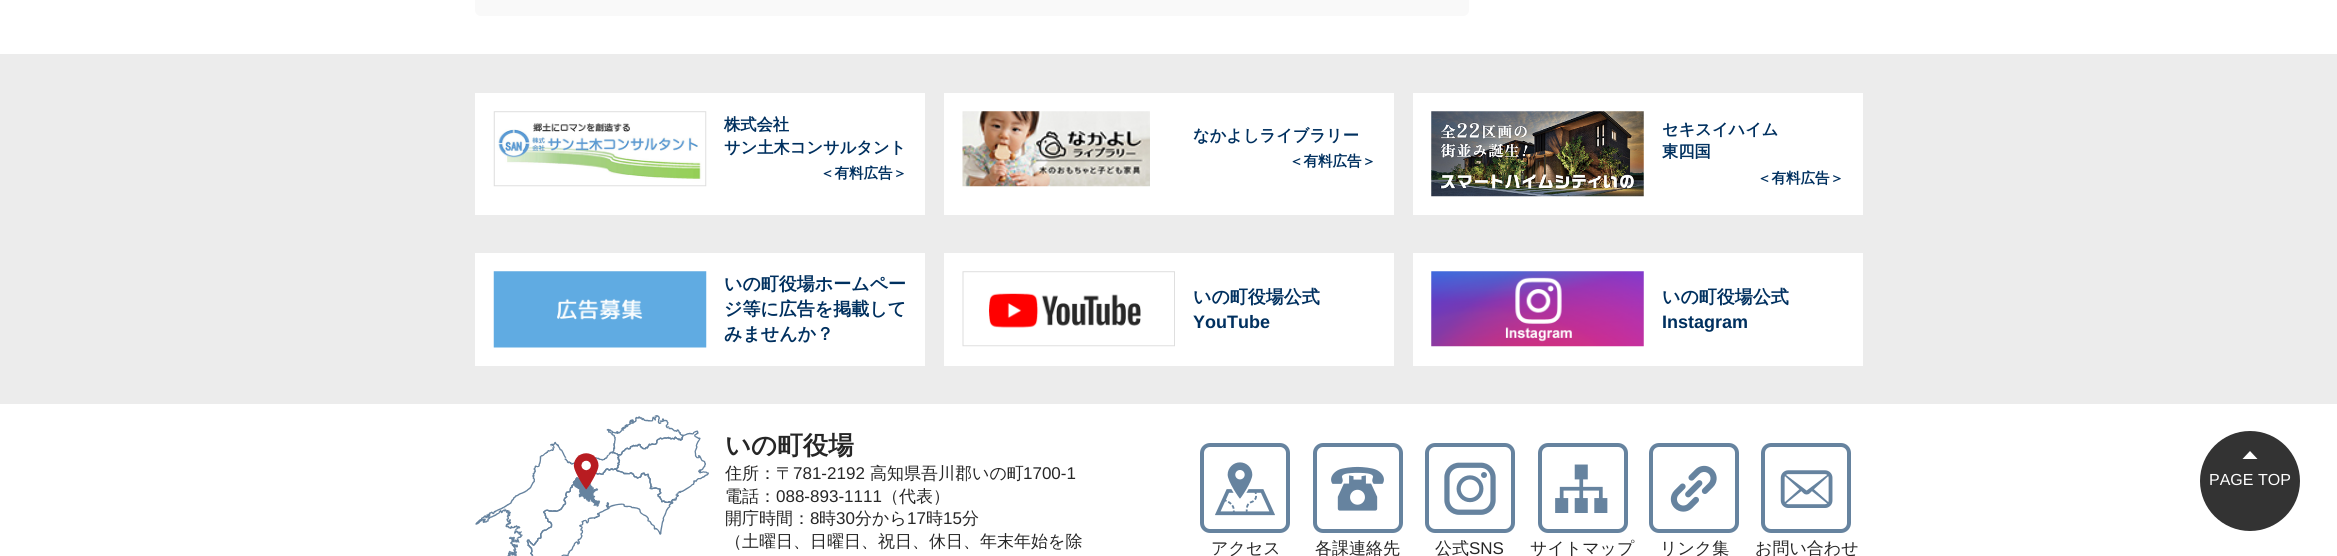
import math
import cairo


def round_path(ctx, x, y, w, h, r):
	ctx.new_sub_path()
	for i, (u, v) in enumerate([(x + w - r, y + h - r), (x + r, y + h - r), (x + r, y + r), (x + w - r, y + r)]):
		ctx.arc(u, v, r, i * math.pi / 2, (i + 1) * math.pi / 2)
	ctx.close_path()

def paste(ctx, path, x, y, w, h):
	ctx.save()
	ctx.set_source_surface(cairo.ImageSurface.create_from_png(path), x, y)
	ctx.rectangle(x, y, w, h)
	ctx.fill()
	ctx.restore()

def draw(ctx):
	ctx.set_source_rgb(1, 1, 1)
	ctx.paint()
	ctx.set_source_rgb(0.976, 0.976, 0.976)
	ctx.new_path()
	ctx.move_to(475, -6)
	ctx.line_to(1469, -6)
	ctx.line_to(1469, 10)
	ctx.curve_to(1469, 13.5, 1466.5, 16, 1463, 16)
	ctx.line_to(481, 16)
	ctx.curve_to(477.5, 16, 475, 13.5, 475, 10)
	ctx.close_path()
	ctx.fill()
	ctx.set_source_rgb(0.922, 0.922, 0.922)
	ctx.rectangle(0, 54, 2337, 350)
	ctx.fill()
	ctx.set_source_rgb(1, 1, 1)
	ctx.rectangle(475, 93, 450, 122)
	ctx.fill()
	paste(ctx, 'media/1.png', 493, 111, 214, 76)
	ctx.select_font_face('WenQuanYi Zen Hei', cairo.FONT_SLANT_NORMAL, cairo.FONT_WEIGHT_BOLD)
	ctx.set_font_size(16.25)
	ctx.set_source_rgb(0, 0.188, 0.373)
	ctx.move_to(724, 130)
	ctx.show_text('株式会社')
	ctx.move_to(724, 153)
	ctx.show_text('サン土木コンサルタント')
	ctx.set_font_size(14.5)
	ctx.move_to(820, 178)
	ctx.show_text('＜有料広告＞')
	ctx.set_source_rgb(1, 1, 1)
	ctx.rectangle(944, 93, 450, 122)
	ctx.fill()
	paste(ctx, 'media/2.png', 962, 111, 188, 76)
	ctx.set_font_size(16.25)
	ctx.set_source_rgb(0, 0.188, 0.373)
	ctx.move_to(1193, 141)
	ctx.show_text('なかよしライブラリー')
	ctx.set_font_size(14.5)
	ctx.move_to(1289, 166)
	ctx.show_text('＜有料広告＞')
	ctx.set_source_rgb(1, 1, 1)
	ctx.rectangle(1413, 93, 450, 122)
	ctx.fill()
	paste(ctx, 'media/3.png', 1431, 111, 213, 86)
	ctx.set_font_size(16.25)
	ctx.set_source_rgb(0, 0.188, 0.373)
	ctx.move_to(1662, 135)
	ctx.show_text('セキスイハイム')
	ctx.move_to(1662, 157)
	ctx.show_text('東四国')
	ctx.set_font_size(14.5)
	ctx.move_to(1757, 183)
	ctx.show_text('＜有料広告＞')
	ctx.set_source_rgb(1, 1, 1)
	ctx.rectangle(475, 253, 450, 113)
	ctx.fill()
	paste(ctx, 'media/4.png', 493, 271, 214, 77)
	ctx.set_font_size(18)
	ctx.set_source_rgb(0, 0.188, 0.373)
	for x, y, s in [
		(724, 290, 'いの町役場ホームペー'),
		(724, 315, 'ジ等に広告を掲載して'),
		(724, 340, 'みませんか？'),
	]:
		ctx.move_to(x, y)
		ctx.show_text(s)
	ctx.set_source_rgb(1, 1, 1)
	ctx.rectangle(944, 253, 450, 113)
	ctx.fill()
	paste(ctx, 'media/5.png', 962, 271, 213, 76)
	ctx.set_source_rgb(0, 0.188, 0.373)
	ctx.move_to(1193, 303)
	ctx.show_text('いの町役場公式')
	ctx.select_font_face('Liberation Sans', cairo.FONT_SLANT_NORMAL, cairo.FONT_WEIGHT_BOLD)
	ctx.move_to(1193, 328)
	ctx.show_text('YouTube')
	ctx.set_source_rgb(1, 1, 1)
	ctx.rectangle(1413, 253, 450, 113)
	ctx.fill()
	paste(ctx, 'media/6.png', 1431, 271, 213, 76)
	ctx.select_font_face('WenQuanYi Zen Hei', cairo.FONT_SLANT_NORMAL, cairo.FONT_WEIGHT_BOLD)
	ctx.set_source_rgb(0, 0.188, 0.373)
	ctx.move_to(1662, 303)
	ctx.show_text('いの町役場公式')
	ctx.select_font_face('Liberation Sans', cairo.FONT_SLANT_NORMAL, cairo.FONT_WEIGHT_BOLD)
	ctx.move_to(1662, 328)
	ctx.show_text('Instagram')
	paste(ctx, 'media/7.png', 475, 415, 234, 141)
	ctx.select_font_face('WenQuanYi Zen Hei', cairo.FONT_SLANT_NORMAL, cairo.FONT_WEIGHT_BOLD)
	ctx.set_font_size(25.5)
	ctx.set_source_rgb(0.149, 0.149, 0.149)
	ctx.move_to(725, 454)
	ctx.show_text('いの町役場')
	ctx.select_font_face('WenQuanYi Zen Hei Medium')
	ctx.set_font_size(17)
	ctx.move_to(725, 479)
	ctx.show_text('住所：〒')
	ctx.select_font_face('Liberation Sans')
	ctx.move_to(793, 479)
	ctx.show_text('781-2192')
	ctx.select_font_face('WenQuanYi Zen Hei Medium')
	ctx.move_to(870, 479)
	ctx.show_text('高知県吾川郡いの町')
	ctx.select_font_face('Liberation Sans')
	ctx.move_to(1023, 479)
	ctx.show_text('1700-1')
	ctx.select_font_face('WenQuanYi Zen Hei Medium')
	ctx.move_to(725, 502)
	ctx.show_text('電話：')
	ctx.select_font_face('Liberation Sans')
	ctx.move_to(776, 502)
	ctx.show_text('088-893-1111')
	ctx.select_font_face('WenQuanYi Zen Hei Medium')
	ctx.move_to(882, 502)
	ctx.show_text('（代表）')
	ctx.move_to(725, 524)
	ctx.show_text('開庁時間：')
	ctx.select_font_face('Liberation Sans')
	ctx.move_to(810, 524)
	ctx.show_text('8')
	ctx.select_font_face('WenQuanYi Zen Hei Medium')
	ctx.move_to(819, 524)
	ctx.show_text('時')
	ctx.select_font_face('Liberation Sans')
	ctx.move_to(836, 524)
	ctx.show_text('30')
	ctx.select_font_face('WenQuanYi Zen Hei Medium')
	ctx.move_to(855, 524)
	ctx.show_text('分から')
	ctx.select_font_face('Liberation Sans')
	ctx.move_to(907, 524)
	ctx.show_text('17')
	ctx.select_font_face('WenQuanYi Zen Hei Medium')
	ctx.move_to(926, 524)
	ctx.show_text('時')
	ctx.select_font_face('Liberation Sans')
	ctx.move_to(943, 524)
	ctx.show_text('15')
	ctx.select_font_face('WenQuanYi Zen Hei Medium')
	ctx.move_to(962, 524)
	ctx.show_text('分')
	ctx.move_to(725, 547)
	ctx.show_text('（土曜日、日曜日、祝日、休日、年末年始を除')
	paste(ctx, 'media/8.png', 1215, 462, 60, 54)
	round_path(ctx, 1202, 445, 86, 86, 8)
	ctx.set_source_rgb(0.4, 0.514, 0.624)
	ctx.set_line_width(4)
	ctx.stroke()
	ctx.set_source_rgb(0.149, 0.149, 0.149)
	ctx.move_to(1211, 554)
	ctx.show_text('アクセス')
	paste(ctx, 'media/9.png', 1331, 466, 53, 45)
	round_path(ctx, 1315, 445, 86, 86, 8)
	ctx.set_source_rgb(0.4, 0.514, 0.624)
	ctx.stroke()
	ctx.set_source_rgb(0.149, 0.149, 0.149)
	ctx.move_to(1315, 554)
	ctx.show_text('各課連絡先')
	paste(ctx, 'media/10.png', 1444, 462, 52, 53)
	round_path(ctx, 1427, 445, 86, 86, 8)
	ctx.set_source_rgb(0.4, 0.514, 0.624)
	ctx.stroke()
	ctx.set_source_rgb(0.149, 0.149, 0.149)
	ctx.move_to(1435, 554)
	ctx.show_text('公式')
	ctx.select_font_face('Liberation Sans')
	ctx.move_to(1469, 554)
	ctx.show_text('SNS')
	paste(ctx, 'media/11.png', 1555, 464, 53, 49)
	round_path(ctx, 1540, 445, 86, 86, 8)
	ctx.set_source_rgb(0.4, 0.514, 0.624)
	ctx.stroke()
	ctx.select_font_face('WenQuanYi Zen Hei Medium')
	ctx.set_source_rgb(0.149, 0.149, 0.149)
	ctx.move_to(1530, 554)
	ctx.show_text('サイトマップ')
	paste(ctx, 'media/12.png', 1670, 465, 47, 47)
	round_path(ctx, 1651, 445, 86, 86, 8)
	ctx.set_source_rgb(0.4, 0.514, 0.624)
	ctx.stroke()
	ctx.set_source_rgb(0.149, 0.149, 0.149)
	ctx.move_to(1660, 554)
	ctx.show_text('リンク集')
	paste(ctx, 'media/13.png', 1780, 470, 53, 38)
	round_path(ctx, 1763, 445, 86, 86, 8)
	ctx.set_source_rgb(0.4, 0.514, 0.624)
	ctx.stroke()
	ctx.set_source_rgb(0.149, 0.149, 0.149)
	ctx.move_to(1755, 554)
	ctx.show_text('お問い合わせ')
	ctx.set_source_rgb(0.2, 0.2, 0.2)
	ctx.new_path()
	ctx.arc(2250, 481, 50, 0, 2 * math.pi)
	ctx.fill()
	ctx.set_source_rgb(1, 1, 1)
	ctx.new_path()
	ctx.move_to(2257.5, 459)
	ctx.line_to(2242.5, 459)
	ctx.line_to(2250, 451)
	ctx.close_path()
	ctx.fill()
	ctx.select_font_face('Liberation Sans')
	ctx.set_font_size(16)
	ctx.move_to(2209, 485)
	ctx.show_text('PAGE TOP')


surface = cairo.ImageSurface(cairo.FORMAT_RGB24, 2337, 556)
ctx = cairo.Context(surface)
options = cairo.FontOptions()
options.set_hint_metrics(cairo.HINT_METRICS_OFF)
options.set_hint_style(cairo.HINT_STYLE_NONE)
ctx.set_font_options(options)
ctx.set_miter_limit(4)
draw(ctx)
surface.write_to_png('image.png')
